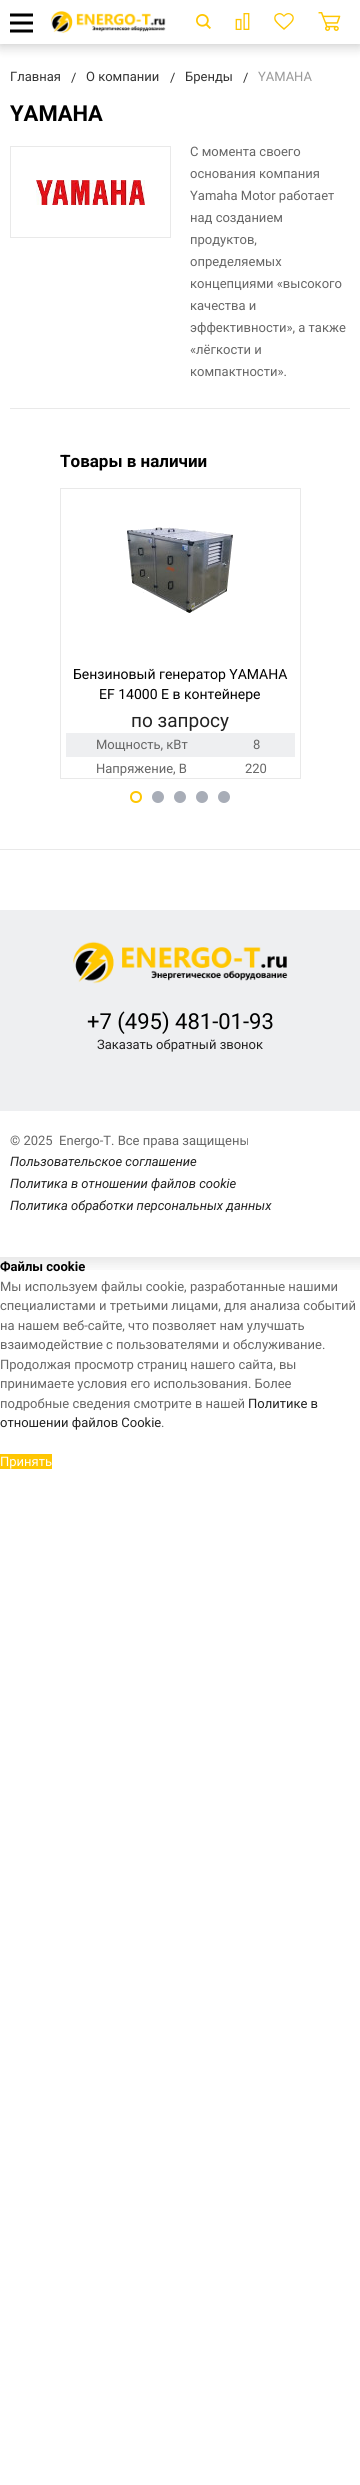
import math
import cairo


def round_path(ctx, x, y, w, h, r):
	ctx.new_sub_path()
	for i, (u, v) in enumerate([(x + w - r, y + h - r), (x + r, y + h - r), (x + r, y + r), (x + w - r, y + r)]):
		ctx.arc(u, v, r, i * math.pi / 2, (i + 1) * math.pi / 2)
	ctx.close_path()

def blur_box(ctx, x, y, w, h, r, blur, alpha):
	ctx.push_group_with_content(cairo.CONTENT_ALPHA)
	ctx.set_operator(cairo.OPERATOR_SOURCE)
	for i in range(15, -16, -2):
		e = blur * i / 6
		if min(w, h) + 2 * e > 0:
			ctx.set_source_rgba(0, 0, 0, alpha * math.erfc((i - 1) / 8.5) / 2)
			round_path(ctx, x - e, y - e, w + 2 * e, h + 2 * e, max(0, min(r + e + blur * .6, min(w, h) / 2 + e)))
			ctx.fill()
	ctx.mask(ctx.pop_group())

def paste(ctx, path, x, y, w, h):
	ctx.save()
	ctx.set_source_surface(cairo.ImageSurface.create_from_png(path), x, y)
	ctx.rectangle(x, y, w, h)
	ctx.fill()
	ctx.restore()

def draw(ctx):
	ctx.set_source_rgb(1, 1, 1)
	ctx.paint()
	ctx.save()
	ctx.rectangle(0, 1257, 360, 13)
	ctx.clip()
	ctx.set_source_rgb(0, 0, 0)
	blur_box(ctx, -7, -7, 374, 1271, 0, 7, 0.1)
	ctx.restore()
	ctx.set_source_rgb(0.02, 0.02, 0.02)
	blur_box(ctx, 0, 0, 360, 43, 0, 7.5, 0.15)
	blur_box(ctx, 0, 0, 360, 44, 0, 7.5, 0.15)
	ctx.set_source_rgb(1, 1, 1)
	ctx.rectangle(0, 0, 360, 44)
	ctx.fill()
	paste(ctx, 'media/1.png', 10, 13, 23, 20)
	paste(ctx, 'media/2.png', 50, 11, 116, 23)
	paste(ctx, 'media/3.png', 196, 14, 15, 15)
	paste(ctx, 'media/4.png', 235, 13, 15, 17)
	paste(ctx, 'media/5.png', 274, 13, 20, 17)
	paste(ctx, 'media/6.png', 318, 12, 23, 19)
	ctx.select_font_face('Roboto')
	ctx.set_font_size(13)
	ctx.set_source_rgb(0.2, 0.2, 0.2)
	for x, y, s in [
		(10, 81, 'Главная'),
		(71, 82, '/'),
		(86, 81, 'О компании'),
		(170, 82, '/'),
		(185, 81, 'Бренды'),
		(243, 82, '/'),
	]:
		ctx.move_to(x, y)
		ctx.show_text(s)
	ctx.set_source_rgb(0.6, 0.6, 0.6)
	ctx.move_to(258, 81)
	ctx.show_text('YAMAHA')
	ctx.select_font_face('Roboto', cairo.FONT_SLANT_NORMAL, cairo.FONT_WEIGHT_BOLD)
	ctx.set_font_size(22)
	ctx.set_source_rgb(0, 0, 0)
	ctx.move_to(10, 121)
	ctx.show_text('YAMAHA')
	ctx.set_source_rgb(0.914, 0.914, 0.914)
	ctx.rectangle(10, 408, 340, 1)
	ctx.fill()
	ctx.rectangle(10.5, 146.5, 160, 91)
	ctx.set_line_width(1)
	ctx.stroke()
	paste(ctx, 'media/7.png', 36, 180, 109, 25)
	ctx.select_font_face('Roboto')
	ctx.set_font_size(13)
	ctx.set_source_rgb(0.4, 0.4, 0.4)
	for x, y, s in [
		(190, 156, 'С момента своего'),
		(190, 178, 'основания компания'),
		(190, 200, 'Yamaha Motor работает'),
		(190, 222, 'над созданием'),
		(190, 244, 'продуктов,'),
		(190, 266, 'определяемых'),
		(190, 288, 'концепциями «высокого'),
		(190, 310, 'качества и'),
		(190, 332, 'эффективности», а также'),
		(190, 354, '«лёгкости и'),
		(190, 376, 'компактности».'),
	]:
		ctx.move_to(x, y)
		ctx.show_text(s)
	ctx.select_font_face('Roboto', cairo.FONT_SLANT_NORMAL, cairo.FONT_WEIGHT_BOLD)
	ctx.set_font_size(17)
	ctx.set_source_rgb(0, 0, 0)
	ctx.move_to(60, 467)
	ctx.show_text('Товары в наличии')
	ctx.rectangle(60.5, 488.5, 240, 290)
	ctx.set_source_rgb(0.914, 0.914, 0.914)
	ctx.stroke()
	paste(ctx, 'media/8.png', 127, 527, 106, 86)
	ctx.select_font_face('Roboto')
	ctx.set_font_size(14)
	ctx.set_source_rgb(0, 0, 0)
	ctx.move_to(73, 679)
	ctx.show_text('Бензиновый генератор YAMAHA')
	ctx.move_to(99, 699)
	ctx.show_text('EF 14000 E в контейнере')
	ctx.set_font_size(19)
	ctx.set_source_rgb(0.133, 0.133, 0.133)
	ctx.move_to(131, 727)
	ctx.show_text('по запросу')
	ctx.set_source_rgb(0.933, 0.937, 0.945)
	ctx.rectangle(66, 733, 229, 24)
	ctx.fill()
	ctx.set_font_size(13)
	ctx.set_source_rgb(0.4, 0.4, 0.4)
	for x, y, s in [
		(96, 749, 'Мощность, кВт'),
		(253, 749, '8'),
		(96, 773, 'Напряжение, В'),
		(245, 773, '220'),
	]:
		ctx.move_to(x, y)
		ctx.show_text(s)
	ctx.new_path()
	ctx.arc(136, 797, 5, 0, 2 * math.pi)
	ctx.set_source_rgb(1, 0.776, 0.004)
	ctx.set_line_width(2)
	ctx.stroke()
	ctx.set_source_rgb(0.659, 0.678, 0.718)
	ctx.arc(158, 797, 6, 0, 2 * math.pi)
	ctx.fill()
	ctx.arc(180, 797, 6, 0, 2 * math.pi)
	ctx.fill()
	ctx.arc(202, 797, 6, 0, 2 * math.pi)
	ctx.fill()
	ctx.arc(224, 797, 6, 0, 2 * math.pi)
	ctx.fill()
	ctx.set_source_rgb(0.914, 0.914, 0.914)
	ctx.rectangle(0, 849, 360, 1)
	ctx.fill()
	ctx.set_source_rgb(0.933, 0.937, 0.945)
	ctx.rectangle(0, 910, 360, 201)
	ctx.fill()
	paste(ctx, 'media/9.png', 73, 941, 215, 43)
	ctx.set_font_size(22)
	ctx.set_source_rgb(0, 0, 0)
	ctx.move_to(87, 1029)
	ctx.show_text('+7 (495) 481-01-93')
	ctx.set_font_size(13)
	ctx.set_source_rgb(0.133, 0.133, 0.133)
	ctx.move_to(97, 1049)
	ctx.show_text('Заказать обратный звонок')
	ctx.set_source_rgb(0.4, 0.4, 0.4)
	ctx.move_to(10, 1145)
	ctx.show_text('© 2025  Energo-T. Все права защищены')
	ctx.select_font_face('Roboto', cairo.FONT_SLANT_ITALIC)
	ctx.set_source_rgb(0.133, 0.133, 0.133)
	for x, y, s in [
		(10, 1166, 'Пользовательское соглашение'),
		(10, 1188, 'Политика в отношении файлов cookie'),
		(10, 1210, 'Политика обработки персональных данных'),
	]:
		ctx.move_to(x, y)
		ctx.show_text(s)
	ctx.select_font_face('Roboto', cairo.FONT_SLANT_NORMAL, cairo.FONT_WEIGHT_BOLD)
	ctx.set_source_rgb(0, 0, 0)
	ctx.move_to(0, 1271)
	ctx.show_text('Файлы cookie')
	ctx.select_font_face('Roboto')
	ctx.set_source_rgb(0.4, 0.4, 0.4)
	for x, y, s in [
		(0, 1291, 'Мы используем файлы cookie, разработанные нашими'),
		(0, 1310, 'специалистами и третьими лицами, для анализа событий'),
		(0, 1330, 'на нашем веб-сайте, что позволяет нам улучшать'),
		(0, 1349, 'взаимодействие с пользователями и обслуживание.'),
		(0, 1369, 'Продолжая просмотр страниц нашего сайта, вы'),
		(0, 1388, 'принимаете условия его использования. Более'),
		(0, 1408, 'подробные сведения смотрите в нашей'),
	]:
		ctx.move_to(x, y)
		ctx.show_text(s)
	ctx.set_source_rgb(0.133, 0.133, 0.133)
	ctx.move_to(248, 1408)
	ctx.show_text('Политике в')
	ctx.move_to(0, 1427)
	ctx.show_text('отношении файлов Cookie')
	ctx.set_source_rgb(0.4, 0.4, 0.4)
	ctx.move_to(161, 1427)
	ctx.show_text('.')
	ctx.set_source_rgb(1, 0.776, 0.004)
	ctx.rectangle(0, 1454, 52, 15)
	ctx.fill()
	ctx.set_source_rgb(1, 1, 1)
	ctx.move_to(0, 1466)
	ctx.show_text('Принять')


surface = cairo.ImageSurface(cairo.FORMAT_RGB24, 360, 2485)
ctx = cairo.Context(surface)
options = cairo.FontOptions()
options.set_hint_metrics(cairo.HINT_METRICS_OFF)
options.set_hint_style(cairo.HINT_STYLE_NONE)
ctx.set_font_options(options)
ctx.set_miter_limit(4)
draw(ctx)
surface.write_to_png('image.png')
